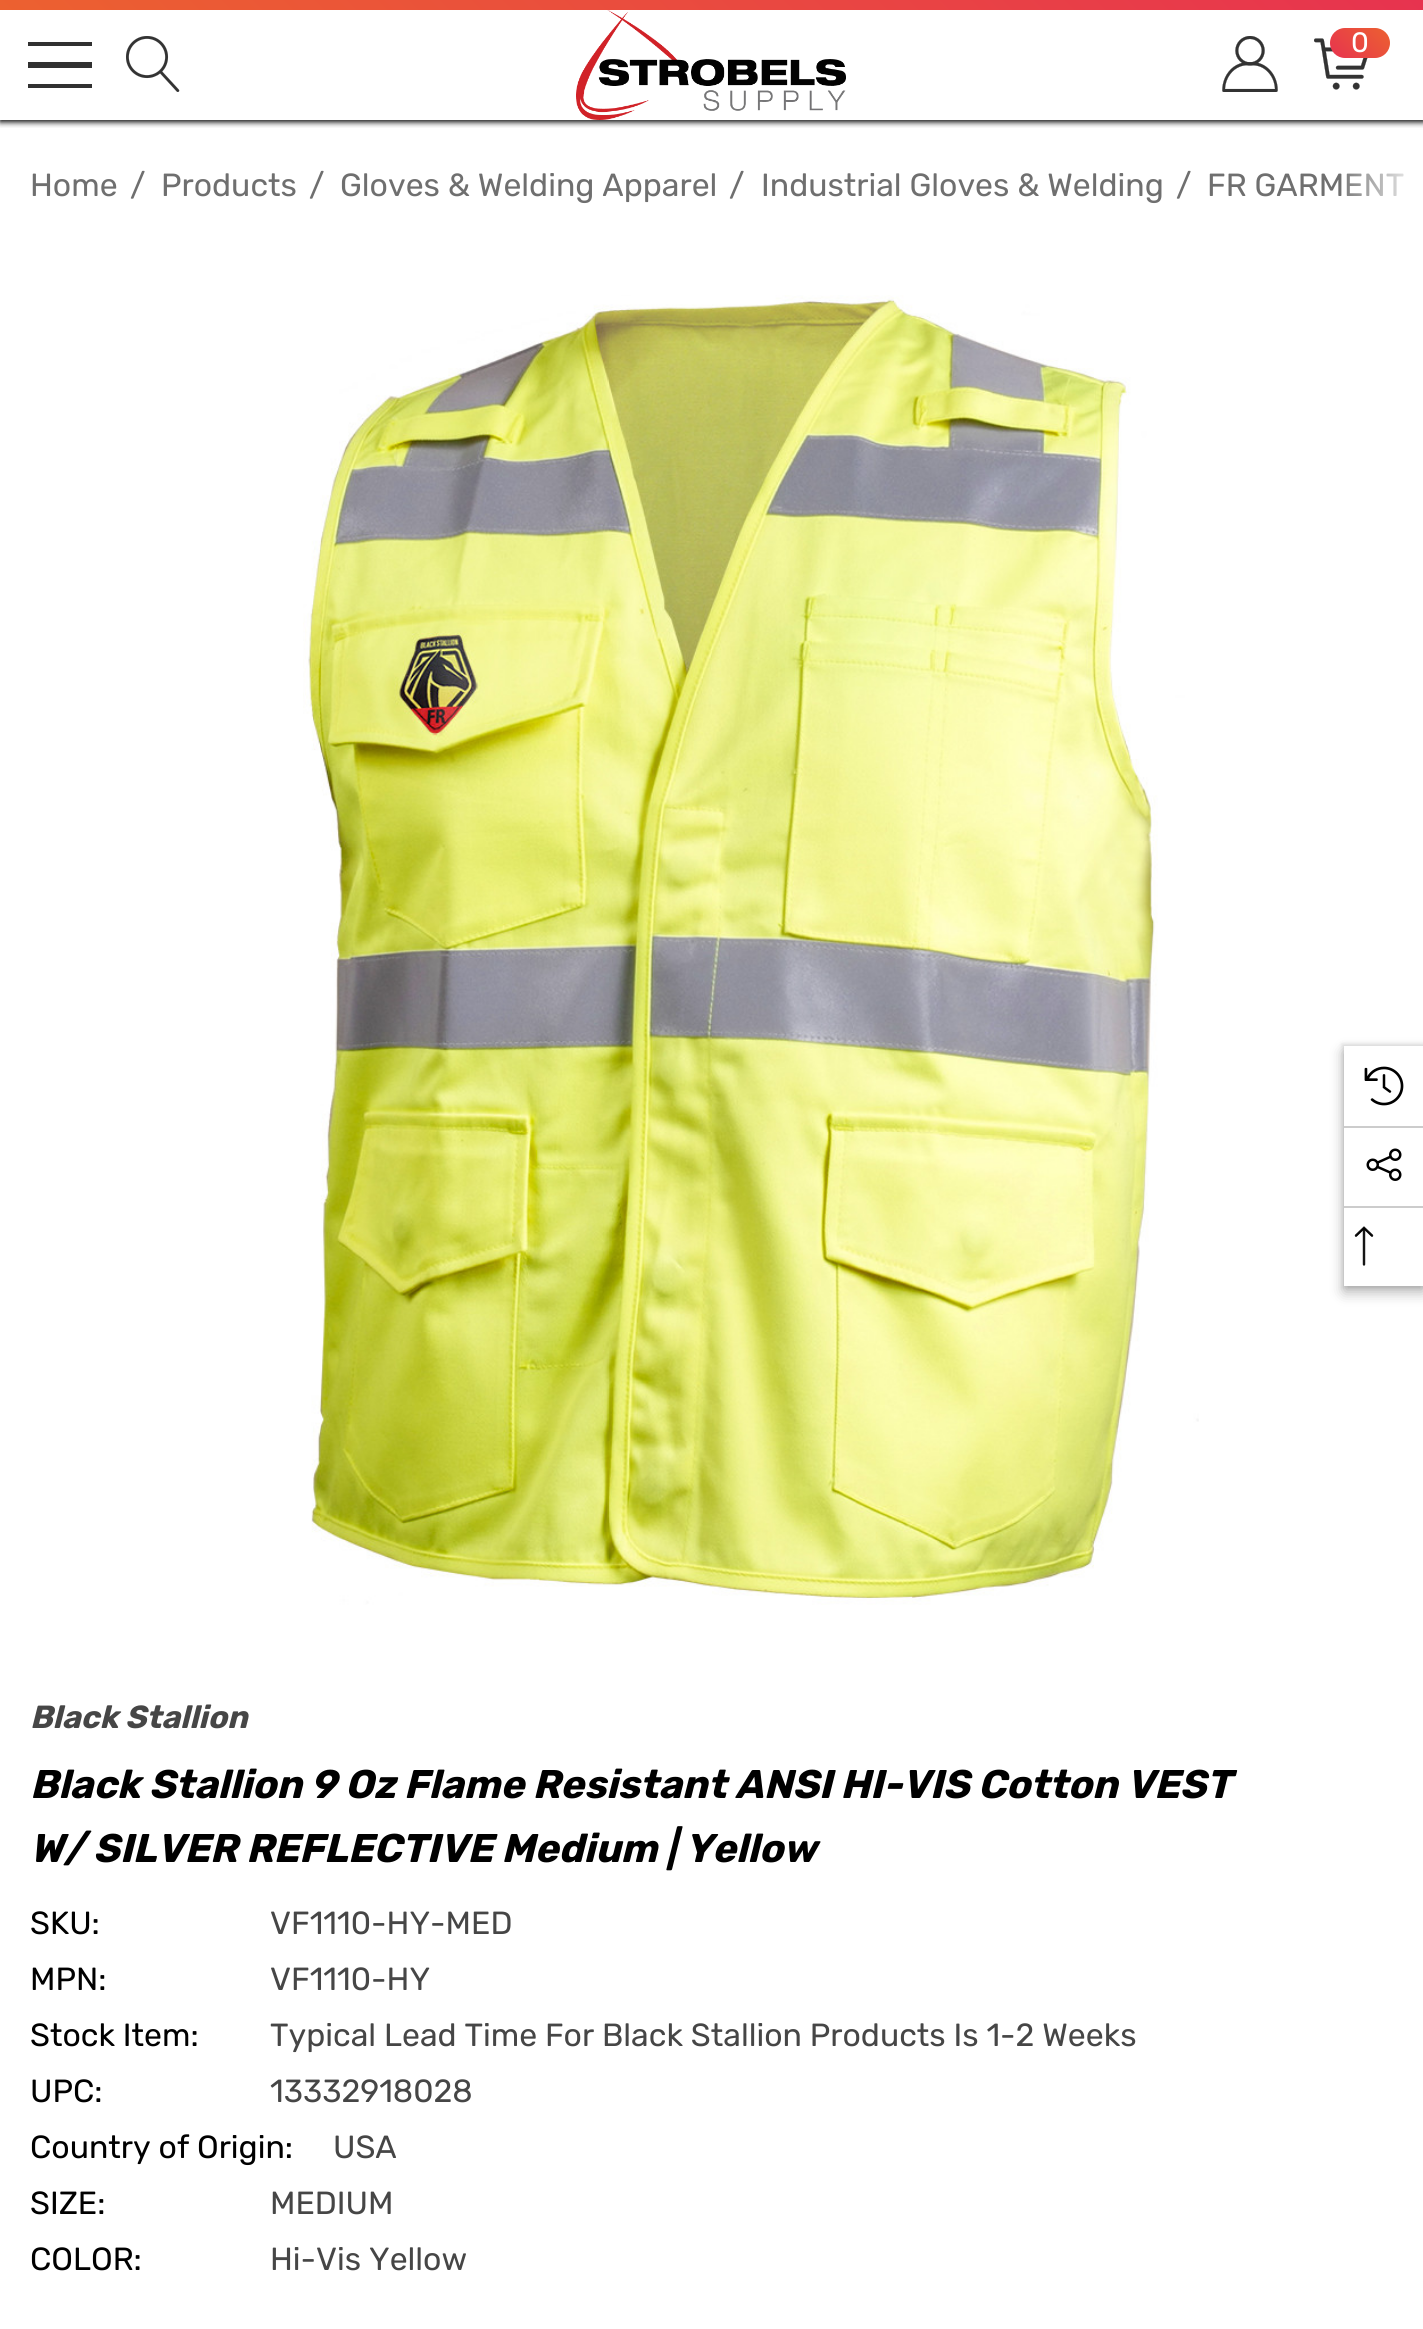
import math
import cairo


def round_path(ctx, x, y, w, h, r):
	ctx.new_sub_path()
	for i, (u, v) in enumerate([(x + w - r, y + h - r), (x + r, y + h - r), (x + r, y + r), (x + w - r, y + r)]):
		ctx.arc(u, v, r, i * math.pi / 2, (i + 1) * math.pi / 2)
	ctx.close_path()

def blur_box(ctx, x, y, w, h, r, blur, alpha):
	ctx.push_group_with_content(cairo.CONTENT_ALPHA)
	ctx.set_operator(cairo.OPERATOR_SOURCE)
	for i in range(15, -16, -2):
		e = blur * i / 6
		if min(w, h) + 2 * e > 0:
			ctx.set_source_rgba(0, 0, 0, alpha * math.erfc((i - 1) / 8.5) / 2)
			round_path(ctx, x - e, y - e, w + 2 * e, h + 2 * e, max(0, min(r + e + blur * .6, min(w, h) / 2 + e)))
			ctx.fill()
	ctx.mask(ctx.pop_group())

def paste(ctx, path, x, y, w, h):
	ctx.save()
	ctx.set_source_surface(cairo.ImageSurface.create_from_png(path), x, y)
	ctx.rectangle(x, y, w, h)
	ctx.fill()
	ctx.restore()

def draw(ctx):
	ctx.set_source_rgb(1, 1, 1)
	ctx.paint()
	ctx.save()
	ctx.rectangle(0, 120, 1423, 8)
	ctx.clip()
	ctx.set_source_rgb(0, 0, 0)
	blur_box(ctx, 0, 2, 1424, 120, 0, 3, 1)
	ctx.restore()
	gradient = cairo.LinearGradient(354, 364, 1071, -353)
	gradient.add_color_stop_rgba(0, 0.925, 0.38, 0.188, 1)
	gradient.add_color_stop_rgba(1, 0.906, 0.2, 0.31, 1)
	ctx.set_source(gradient)
	ctx.rectangle(0, 0, 1423, 10)
	ctx.fill()
	ctx.set_source_rgb(0.192, 0.192, 0.192)
	ctx.rectangle(28, 62, 64, 6)
	ctx.rectangle(28, 42, 64, 4)
	ctx.rectangle(28, 84, 64, 4)
	ctx.fill()
	paste(ctx, 'media/1.png', 126, 36, 54, 56)
	paste(ctx, 'media/2.png', 576, 10, 270, 110)
	paste(ctx, 'media/3.png', 1222, 36, 56, 56)
	paste(ctx, 'media/4.png', 1314, 38, 54, 52)
	gradient = cairo.LinearGradient(1338, 66, 1383, 21)
	gradient.add_color_stop_rgba(0, 0.906, 0.2, 0.31, 1)
	gradient.add_color_stop_rgba(1, 0.925, 0.38, 0.188, 1)
	ctx.set_source(gradient)
	round_path(ctx, 1330, 28, 60, 30, 15)
	ctx.fill()
	ctx.select_font_face('Rubik')
	ctx.set_font_size(28)
	ctx.set_source_rgb(1, 1, 1)
	ctx.move_to(1351, 52)
	ctx.show_text('0')
	ctx.set_font_size(32)
	ctx.set_source_rgb(0.435, 0.435, 0.435)
	for x, y, s in [
		(30, 196, 'Home'),
		(130, 196, '/'),
		(161, 196, 'Products'),
		(309, 196, '/'),
		(340, 196, 'Gloves & Welding Apparel'),
		(729, 196, '/'),
		(761, 196, 'Industrial Gloves & Welding'),
		(1176, 196, '/'),
		(1207, 196, 'FR GARMENT'),
	]:
		ctx.move_to(x, y)
		ctx.show_text(s)
	gradient = cairo.LinearGradient(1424, 190, 1344, 190)
	gradient.add_color_stop_rgba(0, 1, 1, 1, 1)
	gradient.add_color_stop_rgba(1, 1, 1, 1, 0.1)
	ctx.set_source(gradient)
	ctx.rectangle(1346, 173, 58, 23)
	ctx.fill()
	paste(ctx, 'media/5.png', 303, 295, 896, 1310)
	ctx.select_font_face('Rubik', cairo.FONT_SLANT_ITALIC, cairo.FONT_WEIGHT_BOLD)
	ctx.set_source_rgb(0.275, 0.275, 0.275)
	ctx.move_to(30, 1728)
	ctx.show_text('Black Stallion')
	ctx.set_font_size(40)
	ctx.set_source_rgb(0, 0, 0)
	ctx.move_to(30, 1798)
	ctx.show_text('Black Stallion 9 Oz Flame Resistant ANSI HI-VIS Cotton VEST')
	ctx.move_to(30, 1862)
	ctx.show_text('W/ SILVER REFLECTIVE Medium | Yellow')
	ctx.select_font_face('Rubik')
	ctx.set_font_size(32)
	ctx.move_to(30, 1934)
	ctx.show_text('SKU:')
	ctx.set_source_rgb(0.275, 0.275, 0.275)
	ctx.move_to(270, 1934)
	ctx.show_text('VF1110-HY-MED')
	ctx.set_source_rgb(0, 0, 0)
	ctx.move_to(30, 1990)
	ctx.show_text('MPN:')
	ctx.set_source_rgb(0.275, 0.275, 0.275)
	ctx.move_to(270, 1990)
	ctx.show_text('VF1110-HY')
	ctx.set_source_rgb(0, 0, 0)
	ctx.move_to(30, 2046)
	ctx.show_text('Stock Item:')
	ctx.set_source_rgb(0.275, 0.275, 0.275)
	ctx.move_to(270, 2046)
	ctx.show_text('Typical Lead Time For Black Stallion Products Is 1-2 Weeks')
	ctx.set_source_rgb(0, 0, 0)
	ctx.move_to(30, 2102)
	ctx.show_text('UPC:')
	ctx.set_source_rgb(0.275, 0.275, 0.275)
	ctx.move_to(270, 2102)
	ctx.show_text('13332918028')
	ctx.set_source_rgb(0, 0, 0)
	ctx.move_to(30, 2158)
	ctx.show_text('Country of Origin:')
	ctx.set_source_rgb(0.275, 0.275, 0.275)
	ctx.move_to(333, 2158)
	ctx.show_text('USA')
	ctx.set_source_rgb(0, 0, 0)
	ctx.move_to(30, 2214)
	ctx.show_text('SIZE:')
	ctx.set_source_rgb(0.275, 0.275, 0.275)
	ctx.move_to(270, 2214)
	ctx.show_text('MEDIUM')
	ctx.set_source_rgb(0, 0, 0)
	ctx.move_to(30, 2270)
	ctx.show_text('COLOR:')
	ctx.set_source_rgb(0.275, 0.275, 0.275)
	ctx.move_to(270, 2270)
	ctx.show_text('Hi-Vis Yellow')
	ctx.save()
	ctx.set_fill_rule(cairo.FILL_RULE_EVEN_ODD)
	ctx.new_path()
	ctx.move_to(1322, 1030)
	ctx.line_to(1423, 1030)
	ctx.line_to(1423, 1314)
	ctx.line_to(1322, 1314)
	ctx.close_path()
	ctx.move_to(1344, 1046)
	ctx.line_to(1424, 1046)
	ctx.line_to(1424, 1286)
	ctx.line_to(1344, 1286)
	ctx.close_path()
	ctx.clip()
	ctx.set_source_rgb(0, 0, 0)
	blur_box(ctx, 1344, 1052, 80, 240, 0, 7, 0.3)
	ctx.restore()
	ctx.save()
	ctx.set_fill_rule(cairo.FILL_RULE_EVEN_ODD)
	ctx.new_path()
	ctx.move_to(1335, 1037)
	ctx.line_to(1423, 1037)
	ctx.line_to(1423, 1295)
	ctx.line_to(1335, 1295)
	ctx.close_path()
	ctx.move_to(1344, 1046)
	ctx.line_to(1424, 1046)
	ctx.line_to(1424, 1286)
	ctx.line_to(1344, 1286)
	ctx.close_path()
	ctx.clip()
	ctx.set_source_rgb(0, 0, 0)
	blur_box(ctx, 1342, 1044, 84, 244, 0, 2, 0.1)
	ctx.restore()
	paste(ctx, 'media/6.png', 1364, 1066, 40, 40)
	ctx.set_source_rgb(0.8, 0.8, 0.8)
	ctx.rectangle(1344, 1126, 79, 2)
	ctx.fill()
	paste(ctx, 'media/7.png', 1366, 1148, 36, 33)
	ctx.rectangle(1344, 1206, 79, 2)
	ctx.fill()
	paste(ctx, 'media/8.png', 1354, 1226, 20, 40)


surface = cairo.ImageSurface(cairo.FORMAT_RGB24, 1423, 2329)
ctx = cairo.Context(surface)
options = cairo.FontOptions()
options.set_hint_metrics(cairo.HINT_METRICS_OFF)
options.set_hint_style(cairo.HINT_STYLE_NONE)
ctx.set_font_options(options)
ctx.set_miter_limit(4)
draw(ctx)
surface.write_to_png('image.png')
